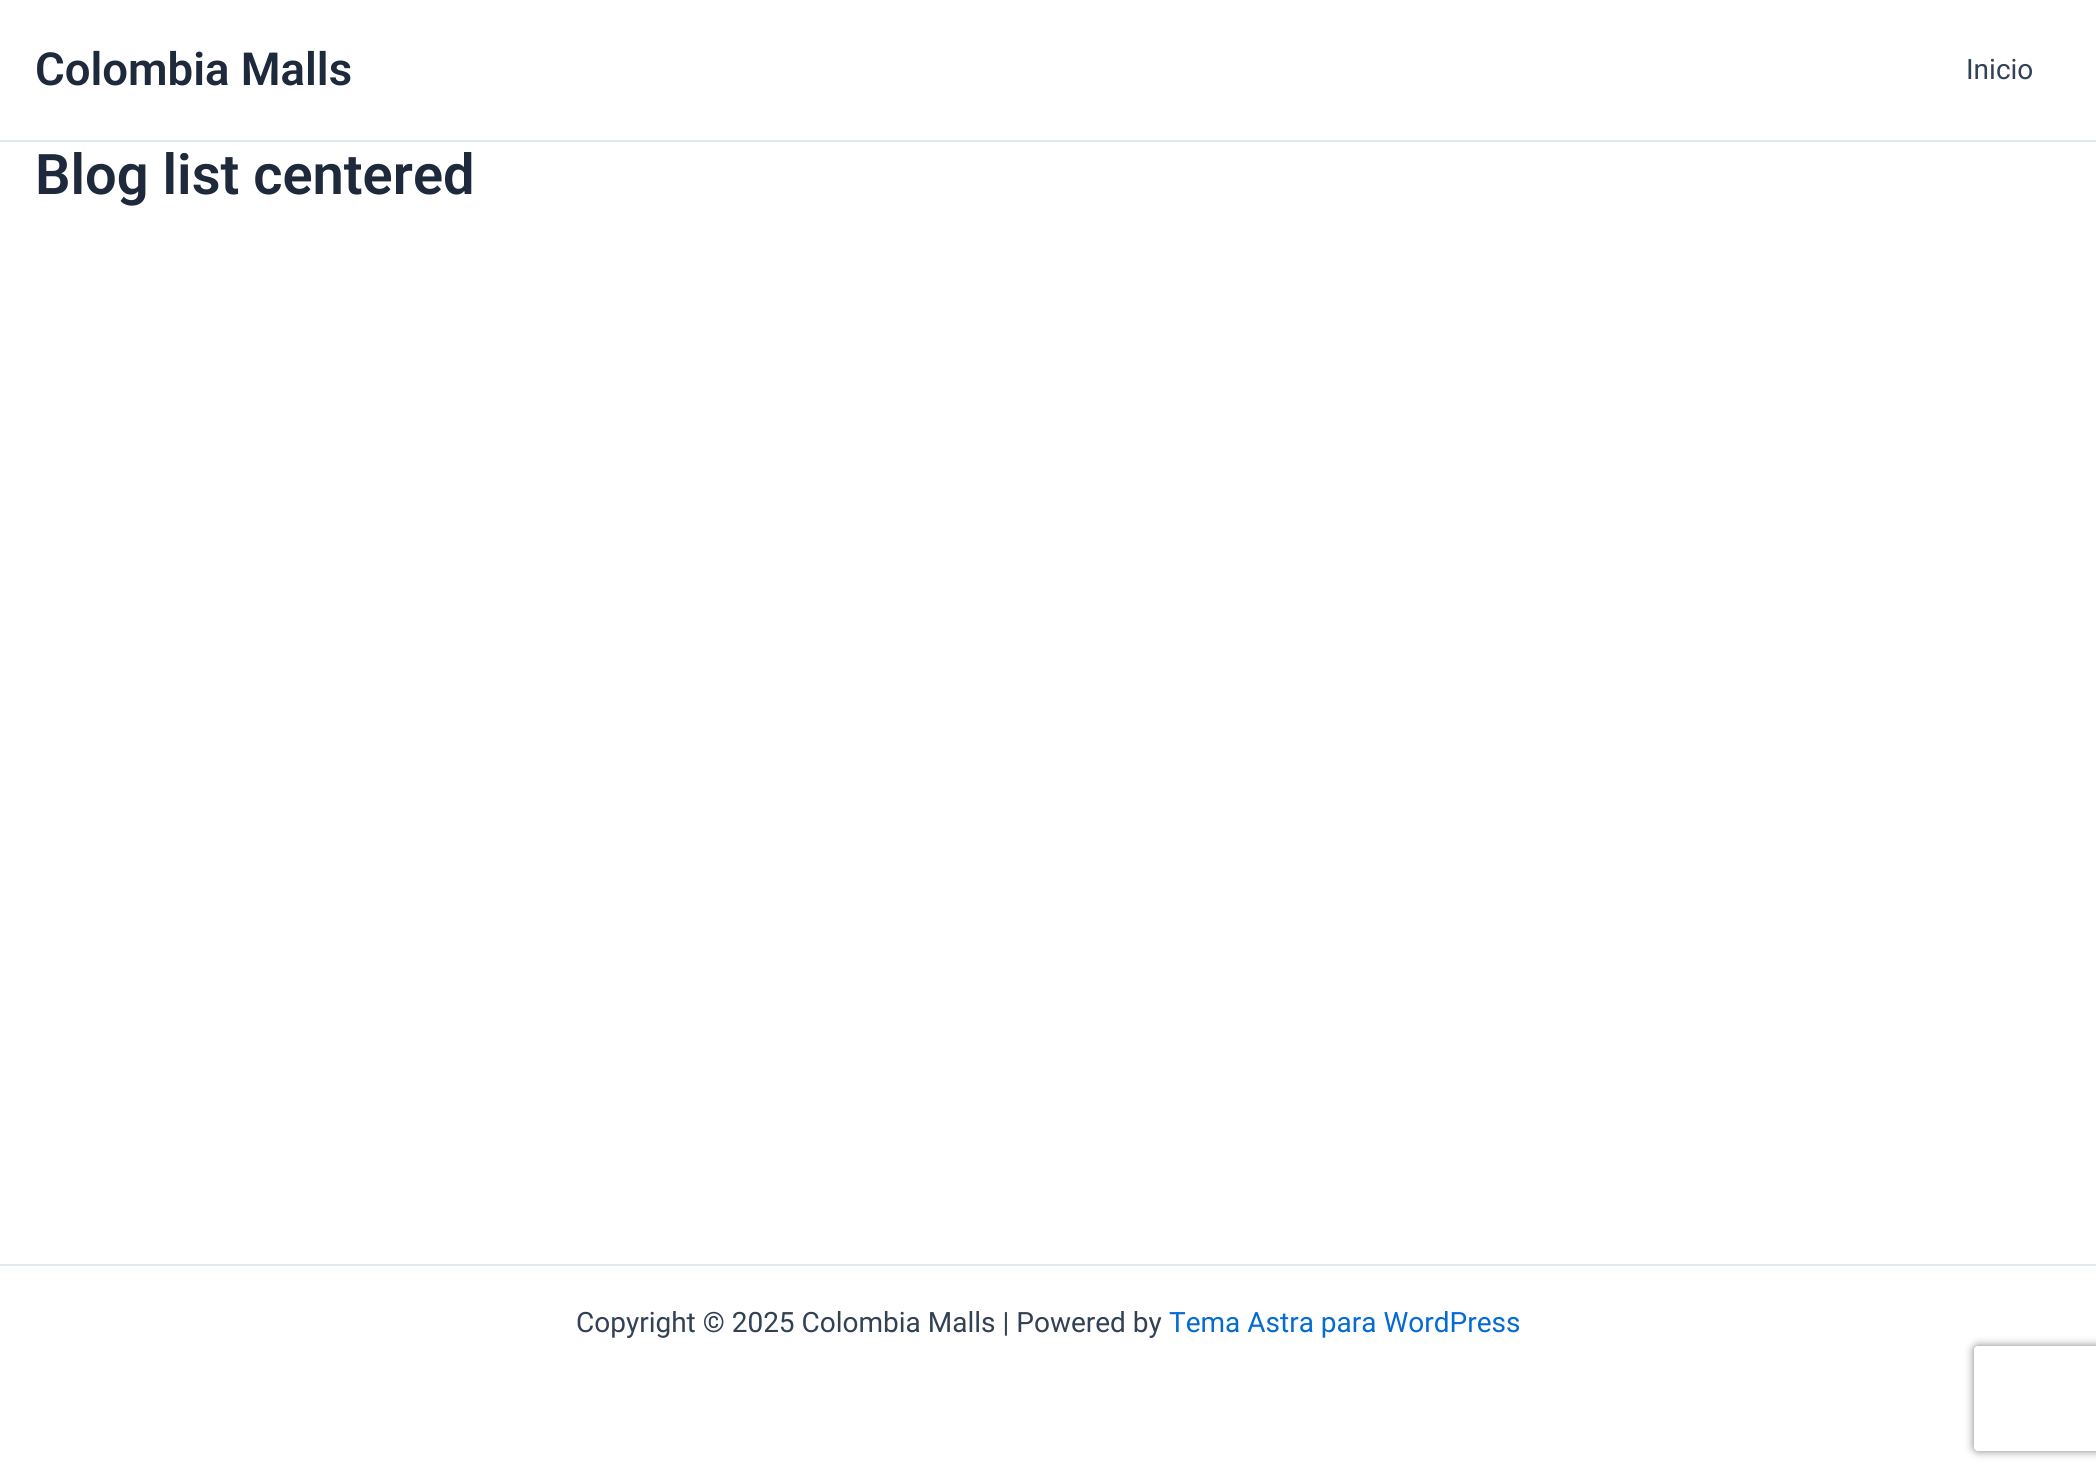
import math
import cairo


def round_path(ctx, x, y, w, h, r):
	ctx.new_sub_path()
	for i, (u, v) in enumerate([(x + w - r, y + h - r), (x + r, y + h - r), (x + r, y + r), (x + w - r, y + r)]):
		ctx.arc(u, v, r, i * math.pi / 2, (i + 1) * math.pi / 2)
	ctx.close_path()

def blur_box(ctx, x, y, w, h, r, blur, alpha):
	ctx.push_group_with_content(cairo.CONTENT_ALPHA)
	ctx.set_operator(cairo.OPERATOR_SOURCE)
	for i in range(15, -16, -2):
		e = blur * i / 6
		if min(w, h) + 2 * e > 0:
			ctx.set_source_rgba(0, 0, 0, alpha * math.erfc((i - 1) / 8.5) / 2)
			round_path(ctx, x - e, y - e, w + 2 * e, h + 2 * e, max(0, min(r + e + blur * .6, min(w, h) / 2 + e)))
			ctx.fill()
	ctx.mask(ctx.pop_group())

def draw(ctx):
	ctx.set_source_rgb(1, 1, 1)
	ctx.paint()
	ctx.set_source_rgb(0.886, 0.91, 0.941)
	ctx.rectangle(0, 140, 2096, 2)
	ctx.fill()
	ctx.select_font_face('Roboto SemiBold')
	ctx.set_font_size(45.5)
	ctx.set_source_rgb(0.118, 0.161, 0.231)
	ctx.move_to(35, 85)
	ctx.show_text('Colombia Malls')
	ctx.select_font_face('Roboto')
	ctx.set_font_size(28)
	ctx.set_source_rgb(0.2, 0.255, 0.333)
	ctx.move_to(1966, 79)
	ctx.show_text('Inicio')
	ctx.select_font_face('Roboto SemiBold')
	ctx.set_font_size(56)
	ctx.set_source_rgb(0.118, 0.161, 0.231)
	ctx.move_to(35, 194)
	ctx.show_text('Blog list centered')
	ctx.set_source_rgb(0.886, 0.91, 0.941)
	ctx.rectangle(0, 1264, 2096, 2)
	ctx.fill()
	ctx.select_font_face('Roboto')
	ctx.set_font_size(28)
	ctx.set_source_rgb(0.2, 0.255, 0.333)
	ctx.move_to(576, 1332)
	ctx.show_text('Copyright © 2025 Colombia Malls | Powered by')
	ctx.set_source_rgb(0.016, 0.42, 0.824)
	ctx.move_to(1169, 1332)
	ctx.show_text('Tema Astra para WordPress')
	ctx.save()
	ctx.set_fill_rule(cairo.FILL_RULE_EVEN_ODD)
	ctx.new_path()
	ctx.move_to(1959, 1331)
	ctx.line_to(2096, 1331)
	ctx.line_to(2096, 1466)
	ctx.line_to(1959, 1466)
	ctx.close_path()
	ctx.move_to(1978, 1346)
	ctx.line_to(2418, 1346)
	ctx.curve_to(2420, 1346, 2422, 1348, 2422, 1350)
	ctx.line_to(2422, 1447)
	ctx.curve_to(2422, 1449, 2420, 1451, 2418, 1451)
	ctx.line_to(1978, 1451)
	ctx.curve_to(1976, 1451, 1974, 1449, 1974, 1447)
	ctx.line_to(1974, 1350)
	ctx.curve_to(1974, 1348, 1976, 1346, 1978, 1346)
	ctx.close_path()
	ctx.clip()
	ctx.set_source_rgb(0.502, 0.502, 0.502)
	blur_box(ctx, 1974, 1346, 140, 105, 4, 4.5, 1)
	ctx.restore()


surface = cairo.ImageSurface(cairo.FORMAT_RGB24, 2096, 1475)
ctx = cairo.Context(surface)
options = cairo.FontOptions()
options.set_hint_metrics(cairo.HINT_METRICS_OFF)
options.set_hint_style(cairo.HINT_STYLE_NONE)
ctx.set_font_options(options)
ctx.set_miter_limit(4)
draw(ctx)
surface.write_to_png('image.png')
